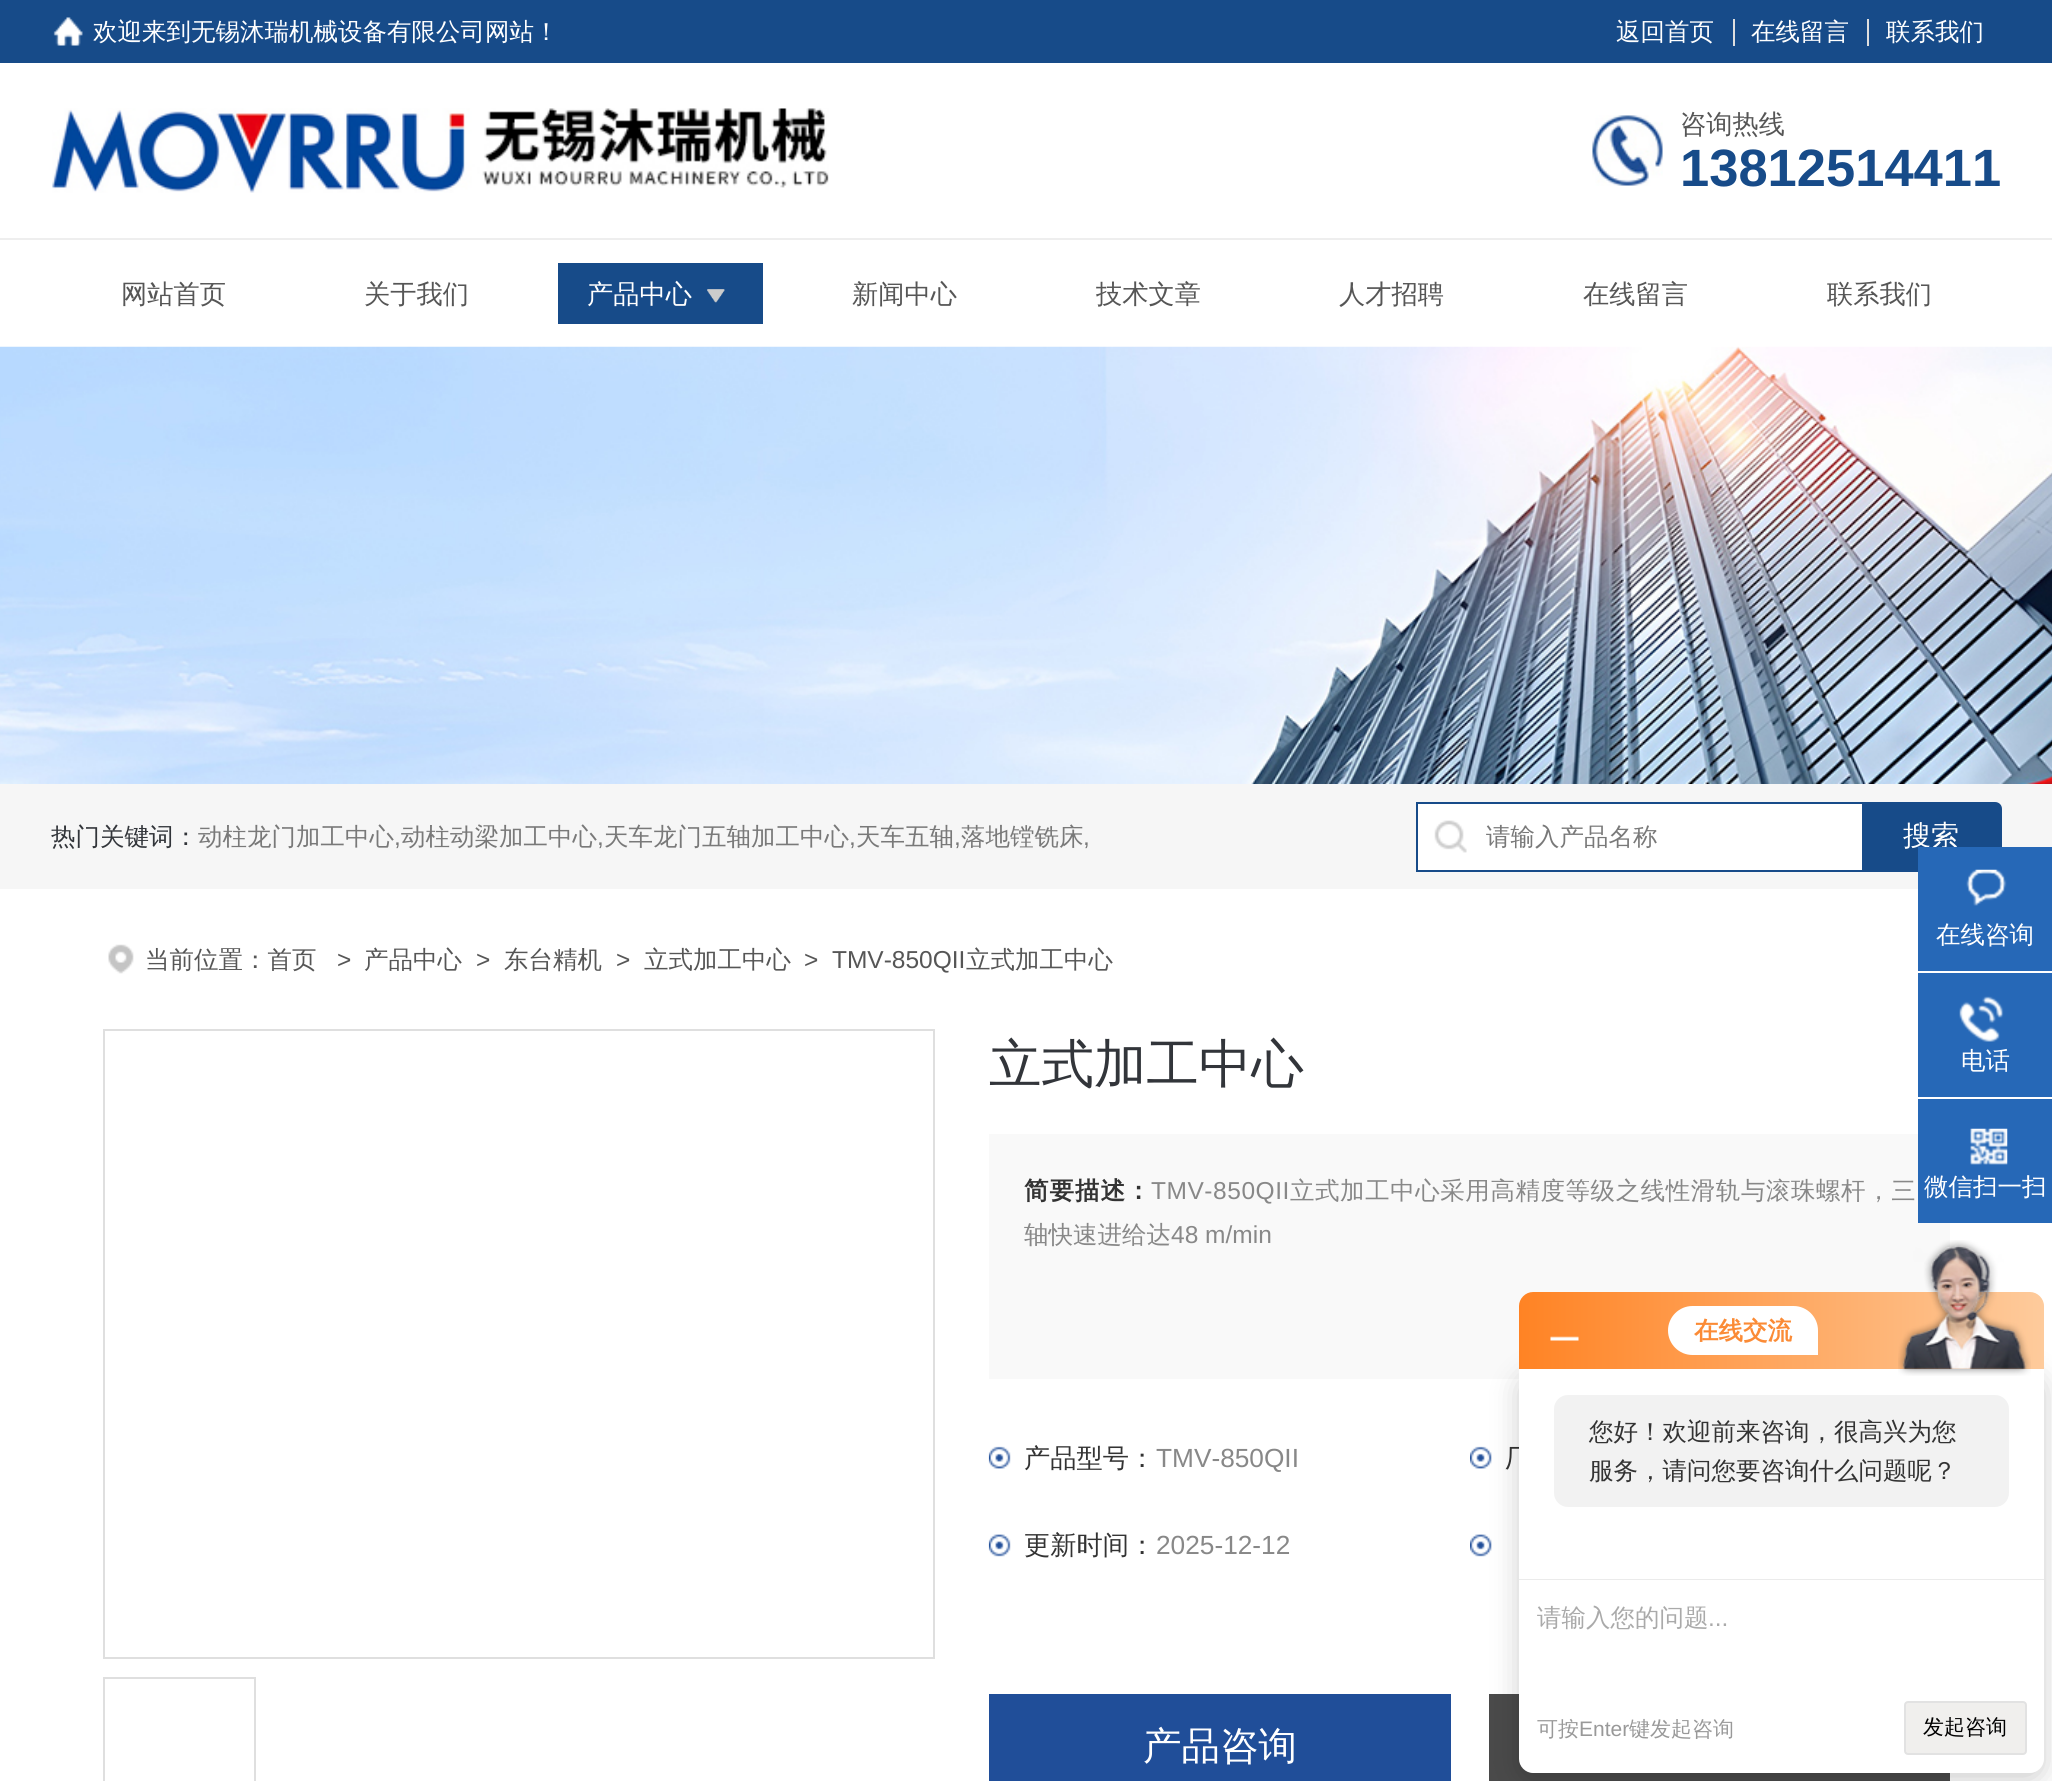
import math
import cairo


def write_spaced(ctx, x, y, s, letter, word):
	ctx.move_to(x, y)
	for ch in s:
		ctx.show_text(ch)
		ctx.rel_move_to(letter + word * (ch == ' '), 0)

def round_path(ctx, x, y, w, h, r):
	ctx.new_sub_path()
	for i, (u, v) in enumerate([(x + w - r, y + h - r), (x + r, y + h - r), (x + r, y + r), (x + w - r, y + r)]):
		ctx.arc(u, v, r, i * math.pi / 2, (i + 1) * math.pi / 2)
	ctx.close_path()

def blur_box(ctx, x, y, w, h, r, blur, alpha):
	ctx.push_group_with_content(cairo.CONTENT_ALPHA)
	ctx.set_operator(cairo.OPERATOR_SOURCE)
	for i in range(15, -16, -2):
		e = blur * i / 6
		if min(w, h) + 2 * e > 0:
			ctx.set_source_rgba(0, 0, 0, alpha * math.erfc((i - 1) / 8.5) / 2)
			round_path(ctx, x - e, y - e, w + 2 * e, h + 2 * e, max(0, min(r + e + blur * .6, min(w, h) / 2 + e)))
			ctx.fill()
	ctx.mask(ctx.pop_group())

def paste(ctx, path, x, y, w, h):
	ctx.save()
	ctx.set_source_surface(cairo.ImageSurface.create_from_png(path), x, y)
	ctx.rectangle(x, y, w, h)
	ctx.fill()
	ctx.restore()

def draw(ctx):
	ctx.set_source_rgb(1, 1, 1)
	ctx.paint()
	ctx.set_source_rgb(0.09, 0.294, 0.537)
	ctx.rectangle(0, 0, 2052, 63)
	ctx.fill()
	paste(ctx, 'media/1.png', 53, 17, 30, 29)
	ctx.select_font_face('WenQuanYi Zen Hei Medium')
	ctx.set_font_size(24.5)
	ctx.set_source_rgb(1, 1, 1)
	ctx.move_to(93, 40)
	ctx.show_text('欢迎来到无锡沐瑞机械设备有限公司网站！')
	ctx.move_to(1616, 40)
	ctx.show_text('返回首页')
	ctx.set_source_rgb(0.875, 0.875, 0.875)
	ctx.rectangle(1733, 19, 2, 27)
	ctx.fill()
	ctx.set_source_rgb(1, 1, 1)
	ctx.move_to(1751, 40)
	ctx.show_text('在线留言')
	ctx.set_source_rgb(0.875, 0.875, 0.875)
	ctx.rectangle(1867, 19, 2, 27)
	ctx.fill()
	ctx.set_source_rgb(1, 1, 1)
	ctx.move_to(1886, 40)
	ctx.show_text('联系我们')
	paste(ctx, 'media/2.png', 52, 108, 777, 85)
	paste(ctx, 'media/3.png', 1592, 115, 71, 71)
	ctx.set_font_size(26.25)
	ctx.set_source_rgb(0.337, 0.337, 0.337)
	ctx.move_to(1680, 133)
	ctx.show_text('咨询热线')
	ctx.select_font_face('Liberation Sans', cairo.FONT_SLANT_NORMAL, cairo.FONT_WEIGHT_BOLD)
	ctx.set_font_size(52.5)
	ctx.set_source_rgb(0.09, 0.294, 0.537)
	ctx.move_to(1680, 186)
	ctx.show_text('13812514411')
	ctx.set_source_rgb(0.933, 0.933, 0.933)
	ctx.rectangle(0, 238, 2052, 2)
	ctx.fill()
	ctx.select_font_face('WenQuanYi Zen Hei Medium')
	ctx.set_font_size(26.25)
	ctx.set_source_rgb(0.337, 0.337, 0.337)
	ctx.move_to(121, 303)
	ctx.show_text('网站首页')
	ctx.move_to(364, 303)
	ctx.show_text('关于我们')
	ctx.set_source_rgb(0.09, 0.294, 0.537)
	ctx.rectangle(558, 263, 205, 61)
	ctx.fill()
	ctx.set_source_rgb(1, 1, 1)
	ctx.move_to(587, 303)
	ctx.show_text('产品中心')
	paste(ctx, 'media/4.png', 707, 289, 18, 14)
	ctx.set_source_rgb(0.337, 0.337, 0.337)
	for x, y, s in [
		(852, 303, '新闻中心'),
		(1096, 303, '技术文章'),
		(1339, 303, '人才招聘'),
		(1583, 303, '在线留言'),
		(1827, 303, '联系我们'),
	]:
		ctx.move_to(x, y)
		ctx.show_text(s)
	paste(ctx, 'media/5.png', 0, 346, 2052, 438)
	ctx.set_source_rgb(0.961, 0.961, 0.961)
	ctx.rectangle(0, 784, 2052, 105)
	ctx.fill()
	ctx.set_font_size(24.5)
	ctx.set_source_rgb(0.196, 0.208, 0.227)
	ctx.move_to(51, 845)
	ctx.show_text('热门关键词：')
	ctx.set_source_rgb(0.475, 0.475, 0.475)
	ctx.move_to(198, 845)
	ctx.show_text('动柱龙门加工中心')
	ctx.select_font_face('Liberation Sans')
	ctx.move_to(394, 845)
	ctx.show_text(',')
	ctx.select_font_face('WenQuanYi Zen Hei Medium')
	ctx.move_to(401, 845)
	ctx.show_text('动柱动梁加工中心')
	ctx.select_font_face('Liberation Sans')
	ctx.move_to(597, 845)
	ctx.show_text(',')
	ctx.select_font_face('WenQuanYi Zen Hei Medium')
	ctx.move_to(604, 845)
	ctx.show_text('天车龙门五轴加工中心')
	ctx.select_font_face('Liberation Sans')
	ctx.move_to(849, 845)
	ctx.show_text(',')
	ctx.select_font_face('WenQuanYi Zen Hei Medium')
	ctx.move_to(856, 845)
	ctx.show_text('天车五轴')
	ctx.select_font_face('Liberation Sans')
	ctx.move_to(954, 845)
	ctx.show_text(',')
	ctx.select_font_face('WenQuanYi Zen Hei Medium')
	ctx.move_to(961, 845)
	ctx.show_text('落地镗铣床')
	ctx.select_font_face('Liberation Sans')
	ctx.move_to(1083, 845)
	ctx.show_text(',')
	ctx.set_source_rgb(1, 1, 1)
	ctx.rectangle(1418, 804, 444, 66)
	ctx.fill()
	paste(ctx, 'media/6.png', 1434, 820, 33, 33)
	ctx.set_source_rgb(0.09, 0.294, 0.537)
	ctx.rectangle(1416, 802, 446, 2)
	ctx.rectangle(1416, 870, 446, 2)
	ctx.rectangle(1416, 802, 2, 70)
	ctx.fill()
	ctx.select_font_face('WenQuanYi Zen Hei Medium')
	ctx.set_source_rgb(0.475, 0.475, 0.475)
	ctx.move_to(1486, 845)
	ctx.show_text('请输入产品名称')
	ctx.set_source_rgb(0.09, 0.294, 0.537)
	ctx.new_path()
	ctx.move_to(1862, 802)
	ctx.line_to(1995, 802)
	ctx.curve_to(1999, 802, 2002, 805, 2002, 809)
	ctx.line_to(2002, 865)
	ctx.curve_to(2002, 869, 1999, 872, 1995, 872)
	ctx.line_to(1862, 872)
	ctx.close_path()
	ctx.fill()
	ctx.set_font_size(28)
	ctx.set_source_rgb(1, 1, 1)
	ctx.move_to(1903, 845)
	ctx.show_text('搜索')
	paste(ctx, 'media/7.png', 108, 944, 26, 30)
	ctx.set_font_size(24.5)
	ctx.set_source_rgb(0.337, 0.337, 0.337)
	ctx.move_to(145, 968)
	ctx.show_text('当前位置：首页')
	ctx.select_font_face('Liberation Sans')
	ctx.move_to(337, 968)
	ctx.show_text('>')
	ctx.select_font_face('WenQuanYi Zen Hei Medium')
	ctx.move_to(364, 968)
	ctx.show_text('产品中心')
	ctx.select_font_face('Liberation Sans')
	ctx.move_to(476, 968)
	ctx.show_text('>')
	ctx.select_font_face('WenQuanYi Zen Hei Medium')
	ctx.move_to(504, 968)
	ctx.show_text('东台精机')
	ctx.select_font_face('Liberation Sans')
	ctx.move_to(616, 968)
	ctx.show_text('>')
	ctx.select_font_face('WenQuanYi Zen Hei Medium')
	ctx.move_to(644, 968)
	ctx.show_text('立式加工中心')
	ctx.select_font_face('Liberation Sans')
	ctx.move_to(804, 968)
	ctx.show_text('>  TMV-850QII')
	ctx.select_font_face('WenQuanYi Zen Hei Medium')
	ctx.move_to(966, 968)
	ctx.show_text('立式加工中心')
	ctx.set_source_rgb(0.149, 0.408, 0.718)
	ctx.rectangle(1918, 847, 134, 124)
	ctx.fill()
	paste(ctx, 'media/8.png', 1966, 869, 41, 37)
	ctx.set_source_rgb(1, 1, 1)
	ctx.move_to(1936, 943)
	ctx.show_text('在线咨询')
	ctx.set_source_rgb(0.149, 0.408, 0.718)
	ctx.rectangle(1918, 973, 134, 124)
	ctx.fill()
	paste(ctx, 'media/9.png', 1959, 996, 45, 46)
	ctx.set_source_rgb(1, 1, 1)
	ctx.move_to(1961, 1069)
	ctx.show_text('电话')
	ctx.set_source_rgb(0.973, 0.973, 0.973)
	ctx.rectangle(989, 1134, 961, 245)
	ctx.fill()
	ctx.set_source_rgb(0.149, 0.408, 0.718)
	ctx.rectangle(1918, 1099, 134, 124)
	ctx.fill()
	paste(ctx, 'media/10.png', 1970, 1128, 38, 37)
	ctx.set_source_rgb(1, 1, 1)
	ctx.move_to(1924, 1195)
	ctx.show_text('微信扫一扫')
	ctx.rectangle(104, 1030, 830, 628)
	ctx.set_source_rgb(0.875, 0.875, 0.875)
	ctx.stroke()
	ctx.rectangle(104, 1678, 151, 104)
	ctx.stroke()
	ctx.set_font_size(52.5)
	ctx.set_source_rgb(0.196, 0.208, 0.227)
	ctx.move_to(989, 1082)
	ctx.show_text('立式加工中心')
	ctx.select_font_face('WenQuanYi Zen Hei', cairo.FONT_SLANT_NORMAL, cairo.FONT_WEIGHT_BOLD)
	ctx.set_font_size(24.5)
	ctx.set_source_rgb(0.2, 0.2, 0.2)
	write_spaced(ctx, 1024, 1199, '简要描述：', 1, 0)
	ctx.select_font_face('Liberation Sans')
	ctx.set_source_rgb(0.533, 0.533, 0.533)
	write_spaced(ctx, 1151, 1199, 'TMV-850QII', 0.55, 0)
	ctx.select_font_face('WenQuanYi Zen Hei Medium')
	write_spaced(ctx, 1290, 1199, '立式加工中心采用高精度等级之线性滑轨与滚珠螺杆，三', 0.55, 0)
	ctx.move_to(1024, 1243)
	ctx.show_text('轴快速进给达')
	ctx.select_font_face('Liberation Sans')
	ctx.move_to(1171, 1243)
	ctx.show_text('48 m/min')
	paste(ctx, 'media/11.png', 988, 1446, 23, 23)
	ctx.select_font_face('WenQuanYi Zen Hei Medium')
	ctx.set_font_size(26.25)
	ctx.set_source_rgb(0.2, 0.2, 0.2)
	ctx.move_to(1024, 1467)
	ctx.show_text('产品型号：')
	ctx.select_font_face('Liberation Sans')
	ctx.set_source_rgb(0.533, 0.533, 0.533)
	ctx.move_to(1156, 1467)
	ctx.show_text('TMV-850QII')
	paste(ctx, 'media/12.png', 1470, 1446, 22, 23)
	ctx.select_font_face('WenQuanYi Zen Hei Medium')
	ctx.set_source_rgb(0.2, 0.2, 0.2)
	ctx.move_to(1505, 1467)
	ctx.show_text('厂')
	paste(ctx, 'media/13.png', 988, 1534, 23, 23)
	ctx.move_to(1024, 1554)
	ctx.show_text('更新时间：')
	ctx.select_font_face('Liberation Sans')
	ctx.set_source_rgb(0.533, 0.533, 0.533)
	ctx.move_to(1156, 1554)
	ctx.show_text('2025-12-12')
	paste(ctx, 'media/14.png', 1470, 1534, 22, 23)
	ctx.set_source_rgb(0.125, 0.306, 0.6)
	ctx.rectangle(989, 1694, 462, 87)
	ctx.fill()
	ctx.select_font_face('WenQuanYi Zen Hei Medium')
	ctx.set_font_size(38.5)
	ctx.set_source_rgb(1, 1, 1)
	ctx.move_to(1143, 1759)
	ctx.show_text('产品咨询')
	ctx.set_source_rgb(0.29, 0.29, 0.29)
	ctx.rectangle(1489, 1694, 461, 87)
	ctx.fill()
	ctx.set_source_rgb(0, 0, 0)
	blur_box(ctx, 1519, 1376, 525, 404, 14, 14, 0.2)
	gradient = cairo.LinearGradient(1519, 1330, 2044, 1330)
	gradient.add_color_stop_rgba(0, 1, 0.514, 0.141, 1)
	gradient.add_color_stop_rgba(1, 0.996, 0.796, 0.612, 1)
	ctx.set_source(gradient)
	ctx.new_path()
	ctx.move_to(1533, 1292)
	ctx.line_to(2030, 1292)
	ctx.curve_to(2037.5, 1292, 2044, 1298.5, 2044, 1306)
	ctx.line_to(2044, 1369)
	ctx.line_to(1519, 1369)
	ctx.line_to(1519, 1306)
	ctx.curve_to(1519, 1298.5, 1525.5, 1292, 1533, 1292)
	ctx.close_path()
	ctx.fill()
	paste(ctx, 'media/15.png', 1550, 1336, 29, 5)
	ctx.set_source_rgb(1, 1, 1)
	ctx.new_path()
	ctx.move_to(1692.5, 1306)
	ctx.line_to(1793.5, 1306)
	ctx.curve_to(1807, 1306, 1818, 1317, 1818, 1330.5)
	ctx.line_to(1818, 1355)
	ctx.line_to(1692.5, 1355)
	ctx.curve_to(1679, 1355, 1668, 1344, 1668, 1330.5)
	ctx.curve_to(1668, 1317, 1679, 1306, 1692.5, 1306)
	ctx.close_path()
	ctx.fill()
	ctx.select_font_face('WenQuanYi Zen Hei', cairo.FONT_SLANT_NORMAL, cairo.FONT_WEIGHT_BOLD)
	ctx.set_font_size(24.5)
	ctx.set_source_rgb(0.984, 0.545, 0.212)
	ctx.move_to(1694, 1339)
	ctx.show_text('在线交流')
	ctx.set_source_rgb(1, 1, 1)
	ctx.new_path()
	ctx.move_to(1519, 1369)
	ctx.line_to(2044, 1369)
	ctx.line_to(2044, 1759)
	ctx.curve_to(2044, 1766.5, 2037.5, 1773, 2030, 1773)
	ctx.line_to(1533, 1773)
	ctx.curve_to(1525.5, 1773, 1519, 1766.5, 1519, 1759)
	ctx.close_path()
	ctx.fill()
	paste(ctx, 'media/16.png', 1898, 1240, 133, 136)
	ctx.set_source_rgb(0.949, 0.949, 0.949)
	round_path(ctx, 1554, 1395, 455, 112, 14)
	ctx.fill()
	ctx.select_font_face('WenQuanYi Zen Hei Medium')
	ctx.set_source_rgb(0.2, 0.2, 0.2)
	ctx.move_to(1589, 1440)
	ctx.show_text('您好！欢迎前来咨询，很高兴为您')
	ctx.move_to(1589, 1479)
	ctx.show_text('服务，请问您要咨询什么问题呢？')
	ctx.set_source_rgb(0.918, 0.918, 0.918)
	ctx.rectangle(1519, 1579, 525, 1)
	ctx.fill()
	ctx.set_source_rgb(0.667, 0.667, 0.667)
	ctx.move_to(1537, 1626)
	ctx.show_text('请输入您的问题')
	ctx.select_font_face('Liberation Sans')
	ctx.move_to(1708, 1626)
	ctx.show_text('...')
	ctx.select_font_face('WenQuanYi Zen Hei Medium')
	ctx.set_font_size(21)
	ctx.set_source_rgb(0.6, 0.6, 0.6)
	ctx.move_to(1537, 1736)
	ctx.show_text('可按')
	ctx.select_font_face('Liberation Sans')
	ctx.move_to(1579, 1736)
	ctx.show_text('Enter')
	ctx.select_font_face('WenQuanYi Zen Hei Medium')
	ctx.move_to(1629, 1736)
	ctx.show_text('键发起咨询')
	ctx.set_source_rgb(0.941, 0.937, 0.929)
	round_path(ctx, 1905, 1702, 121, 52, 3)
	ctx.fill_preserve()
	ctx.set_source_rgb(0.886, 0.886, 0.886)
	ctx.stroke()
	ctx.set_source_rgb(0, 0, 0)
	ctx.move_to(1923, 1734)
	ctx.show_text('发起咨询')


surface = cairo.ImageSurface(cairo.FORMAT_RGB24, 2052, 1781)
ctx = cairo.Context(surface)
options = cairo.FontOptions()
options.set_hint_metrics(cairo.HINT_METRICS_OFF)
options.set_hint_style(cairo.HINT_STYLE_NONE)
ctx.set_font_options(options)
ctx.set_miter_limit(4)
draw(ctx)
surface.write_to_png('image.png')
